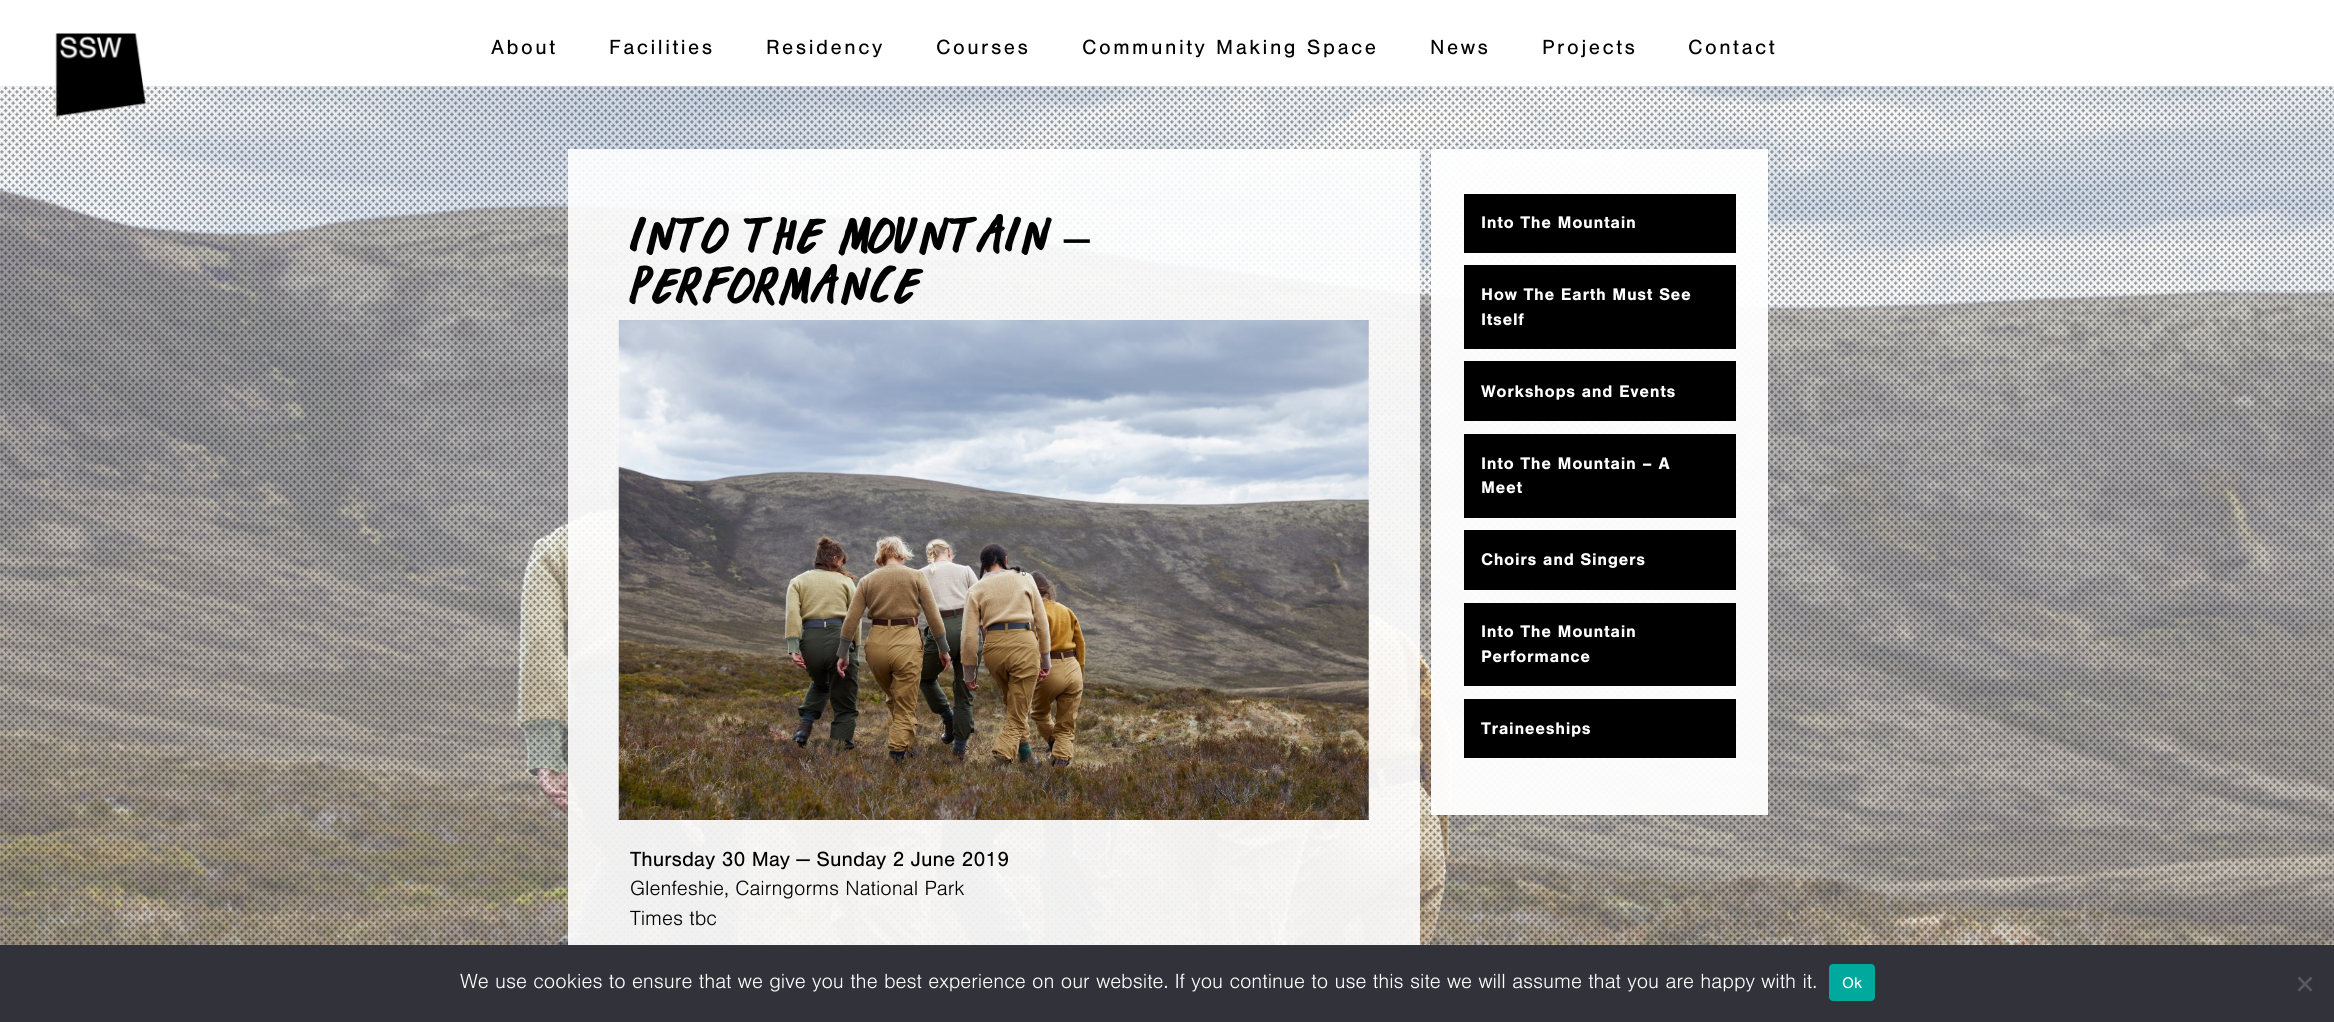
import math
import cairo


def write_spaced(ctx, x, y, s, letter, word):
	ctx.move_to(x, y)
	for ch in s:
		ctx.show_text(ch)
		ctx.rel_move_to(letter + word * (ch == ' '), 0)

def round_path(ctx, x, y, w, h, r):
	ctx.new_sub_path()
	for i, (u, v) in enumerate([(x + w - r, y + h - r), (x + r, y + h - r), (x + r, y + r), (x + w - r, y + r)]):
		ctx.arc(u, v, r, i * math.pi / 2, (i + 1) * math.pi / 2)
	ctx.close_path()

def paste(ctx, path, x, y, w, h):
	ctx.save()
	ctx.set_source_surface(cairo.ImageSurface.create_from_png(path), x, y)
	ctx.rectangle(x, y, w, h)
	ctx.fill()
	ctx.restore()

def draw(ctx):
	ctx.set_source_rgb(1, 1, 1)
	ctx.paint()
	paste(ctx, 'media/2.png', 0, 86, 2334, 859)
	paste(ctx, 'media/3.png', 0, 86, 2334, 859)
	paste(ctx, 'media/1.png', 55, 33, 91, 84)
	ctx.select_font_face('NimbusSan')
	ctx.set_font_size(21.25)
	ctx.set_source_rgb(0, 0, 0)
	for x, y, s in [
		(491, 54, 'About'),
		(609, 54, 'Facilities'),
		(766, 54, 'Residency'),
		(936, 54, 'Courses'),
		(1082, 54, 'Community Making Space'),
		(1430, 54, 'News'),
		(1542, 54, 'Projects'),
		(1688, 54, 'Contact'),
	]:
		write_spaced(ctx, x, y, s, 2.5, 0)
	ctx.set_source_rgba(1, 1, 1, 0.9)
	ctx.rectangle(568, 149, 852, 171)
	ctx.fill()
	ctx.select_font_face('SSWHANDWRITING', cairo.FONT_SLANT_NORMAL, cairo.FONT_WEIGHT_BOLD)
	ctx.set_font_size(51)
	ctx.set_source_rgb(0, 0, 0)
	ctx.move_to(630, 253)
	ctx.show_text('INTO THE MOUNTAIN')
	ctx.select_font_face('Liberation Serif', cairo.FONT_SLANT_NORMAL, cairo.FONT_WEIGHT_BOLD)
	ctx.move_to(1064, 253)
	ctx.show_text('–')
	ctx.select_font_face('SSWHANDWRITING', cairo.FONT_SLANT_NORMAL, cairo.FONT_WEIGHT_BOLD)
	ctx.move_to(630, 303)
	ctx.show_text('PERFORMANCE')
	ctx.set_source_rgba(1, 1, 1, 0.9)
	ctx.rectangle(568, 320, 852, 625)
	ctx.fill()
	paste(ctx, 'media/4.png', 618, 320, 751, 500)
	ctx.select_font_face('NimbusSan')
	ctx.set_font_size(21.25)
	ctx.set_source_rgb(0, 0, 0)
	ctx.move_to(630, 866)
	ctx.show_text('Thursday 30 May — Sunday 2 June 2019')
	ctx.select_font_face('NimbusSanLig')
	ctx.move_to(630, 895)
	ctx.show_text('Glenfeshie, Cairngorms National Park')
	ctx.move_to(630, 925)
	ctx.show_text('Times tbc')
	ctx.set_source_rgba(1, 1, 1, 0.96)
	ctx.rectangle(1431, 149, 337, 666)
	ctx.fill()
	ctx.set_source_rgb(0, 0, 0)
	ctx.rectangle(1464, 194, 272, 59)
	ctx.fill()
	ctx.select_font_face('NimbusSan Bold', cairo.FONT_SLANT_NORMAL, cairo.FONT_WEIGHT_BOLD)
	ctx.set_font_size(17.5)
	ctx.set_source_rgb(1, 1, 1)
	write_spaced(ctx, 1481, 228, 'Into The Mountain', 0.6, 0)
	ctx.set_source_rgb(0, 0, 0)
	ctx.rectangle(1464, 265, 272, 84)
	ctx.fill()
	ctx.set_source_rgb(1, 1, 1)
	write_spaced(ctx, 1481, 300, 'How The Earth Must See', 0.6, 0)
	write_spaced(ctx, 1481, 325, 'Itself', 0.6, 0)
	ctx.set_source_rgb(0, 0, 0)
	ctx.rectangle(1464, 361, 272, 60)
	ctx.fill()
	ctx.set_source_rgb(1, 1, 1)
	write_spaced(ctx, 1481, 397, 'Workshops and Events', 0.6, 0)
	ctx.set_source_rgb(0, 0, 0)
	ctx.rectangle(1464, 434, 272, 84)
	ctx.fill()
	ctx.set_source_rgb(1, 1, 1)
	write_spaced(ctx, 1481, 469, 'Into The Mountain – A', 0.6, 0)
	write_spaced(ctx, 1481, 493, 'Meet', 0.6, 0)
	ctx.set_source_rgb(0, 0, 0)
	ctx.rectangle(1464, 530, 272, 60)
	ctx.fill()
	ctx.set_source_rgb(1, 1, 1)
	write_spaced(ctx, 1481, 565, 'Choirs and Singers', 0.6, 0)
	ctx.set_source_rgb(0, 0, 0)
	ctx.rectangle(1464, 603, 272, 83)
	ctx.fill()
	ctx.set_source_rgb(1, 1, 1)
	write_spaced(ctx, 1481, 637, 'Into The Mountain', 0.6, 0)
	write_spaced(ctx, 1481, 662, 'Performance', 0.6, 0)
	ctx.set_source_rgb(0, 0, 0)
	ctx.rectangle(1464, 699, 272, 59)
	ctx.fill()
	ctx.set_source_rgb(1, 1, 1)
	write_spaced(ctx, 1481, 734, 'Traineeships', 0.6, 0)
	ctx.set_source_rgb(0.196, 0.196, 0.227)
	ctx.rectangle(0, 945, 2334, 77)
	ctx.fill()
	ctx.select_font_face('NimbusSanLig')
	ctx.set_font_size(21.25)
	ctx.set_source_rgb(1, 1, 1)
	ctx.move_to(460, 988)
	ctx.show_text('We use cookies to ensure that we give you the best experience on our website. If you continue to use this site we will assume that you are happy with it.')
	ctx.set_source_rgb(0, 0.663, 0.616)
	round_path(ctx, 1829, 964, 46, 37, 4)
	ctx.fill()
	ctx.select_font_face('NimbusSan')
	ctx.set_font_size(16)
	ctx.set_source_rgb(1, 1, 1)
	ctx.move_to(1842, 988)
	ctx.show_text('Ok')
	ctx.set_source_rgb(0.349, 0.349, 0.365)
	ctx.new_path()
	ctx.move_to(2310.5, 976.5)
	ctx.line_to(2312.5, 978.5)
	ctx.line_to(2299.5, 991.5)
	ctx.line_to(2297.5, 990)
	ctx.close_path()
	ctx.fill()
	ctx.new_path()
	ctx.move_to(2297.5, 978.5)
	ctx.line_to(2299.5, 976.5)
	ctx.line_to(2312.5, 990)
	ctx.line_to(2310.5, 991.5)
	ctx.close_path()
	ctx.fill()


surface = cairo.ImageSurface(cairo.FORMAT_RGB24, 2334, 1022)
ctx = cairo.Context(surface)
options = cairo.FontOptions()
options.set_hint_metrics(cairo.HINT_METRICS_OFF)
options.set_hint_style(cairo.HINT_STYLE_NONE)
ctx.set_font_options(options)
ctx.set_miter_limit(4)
draw(ctx)
surface.write_to_png('image.png')
